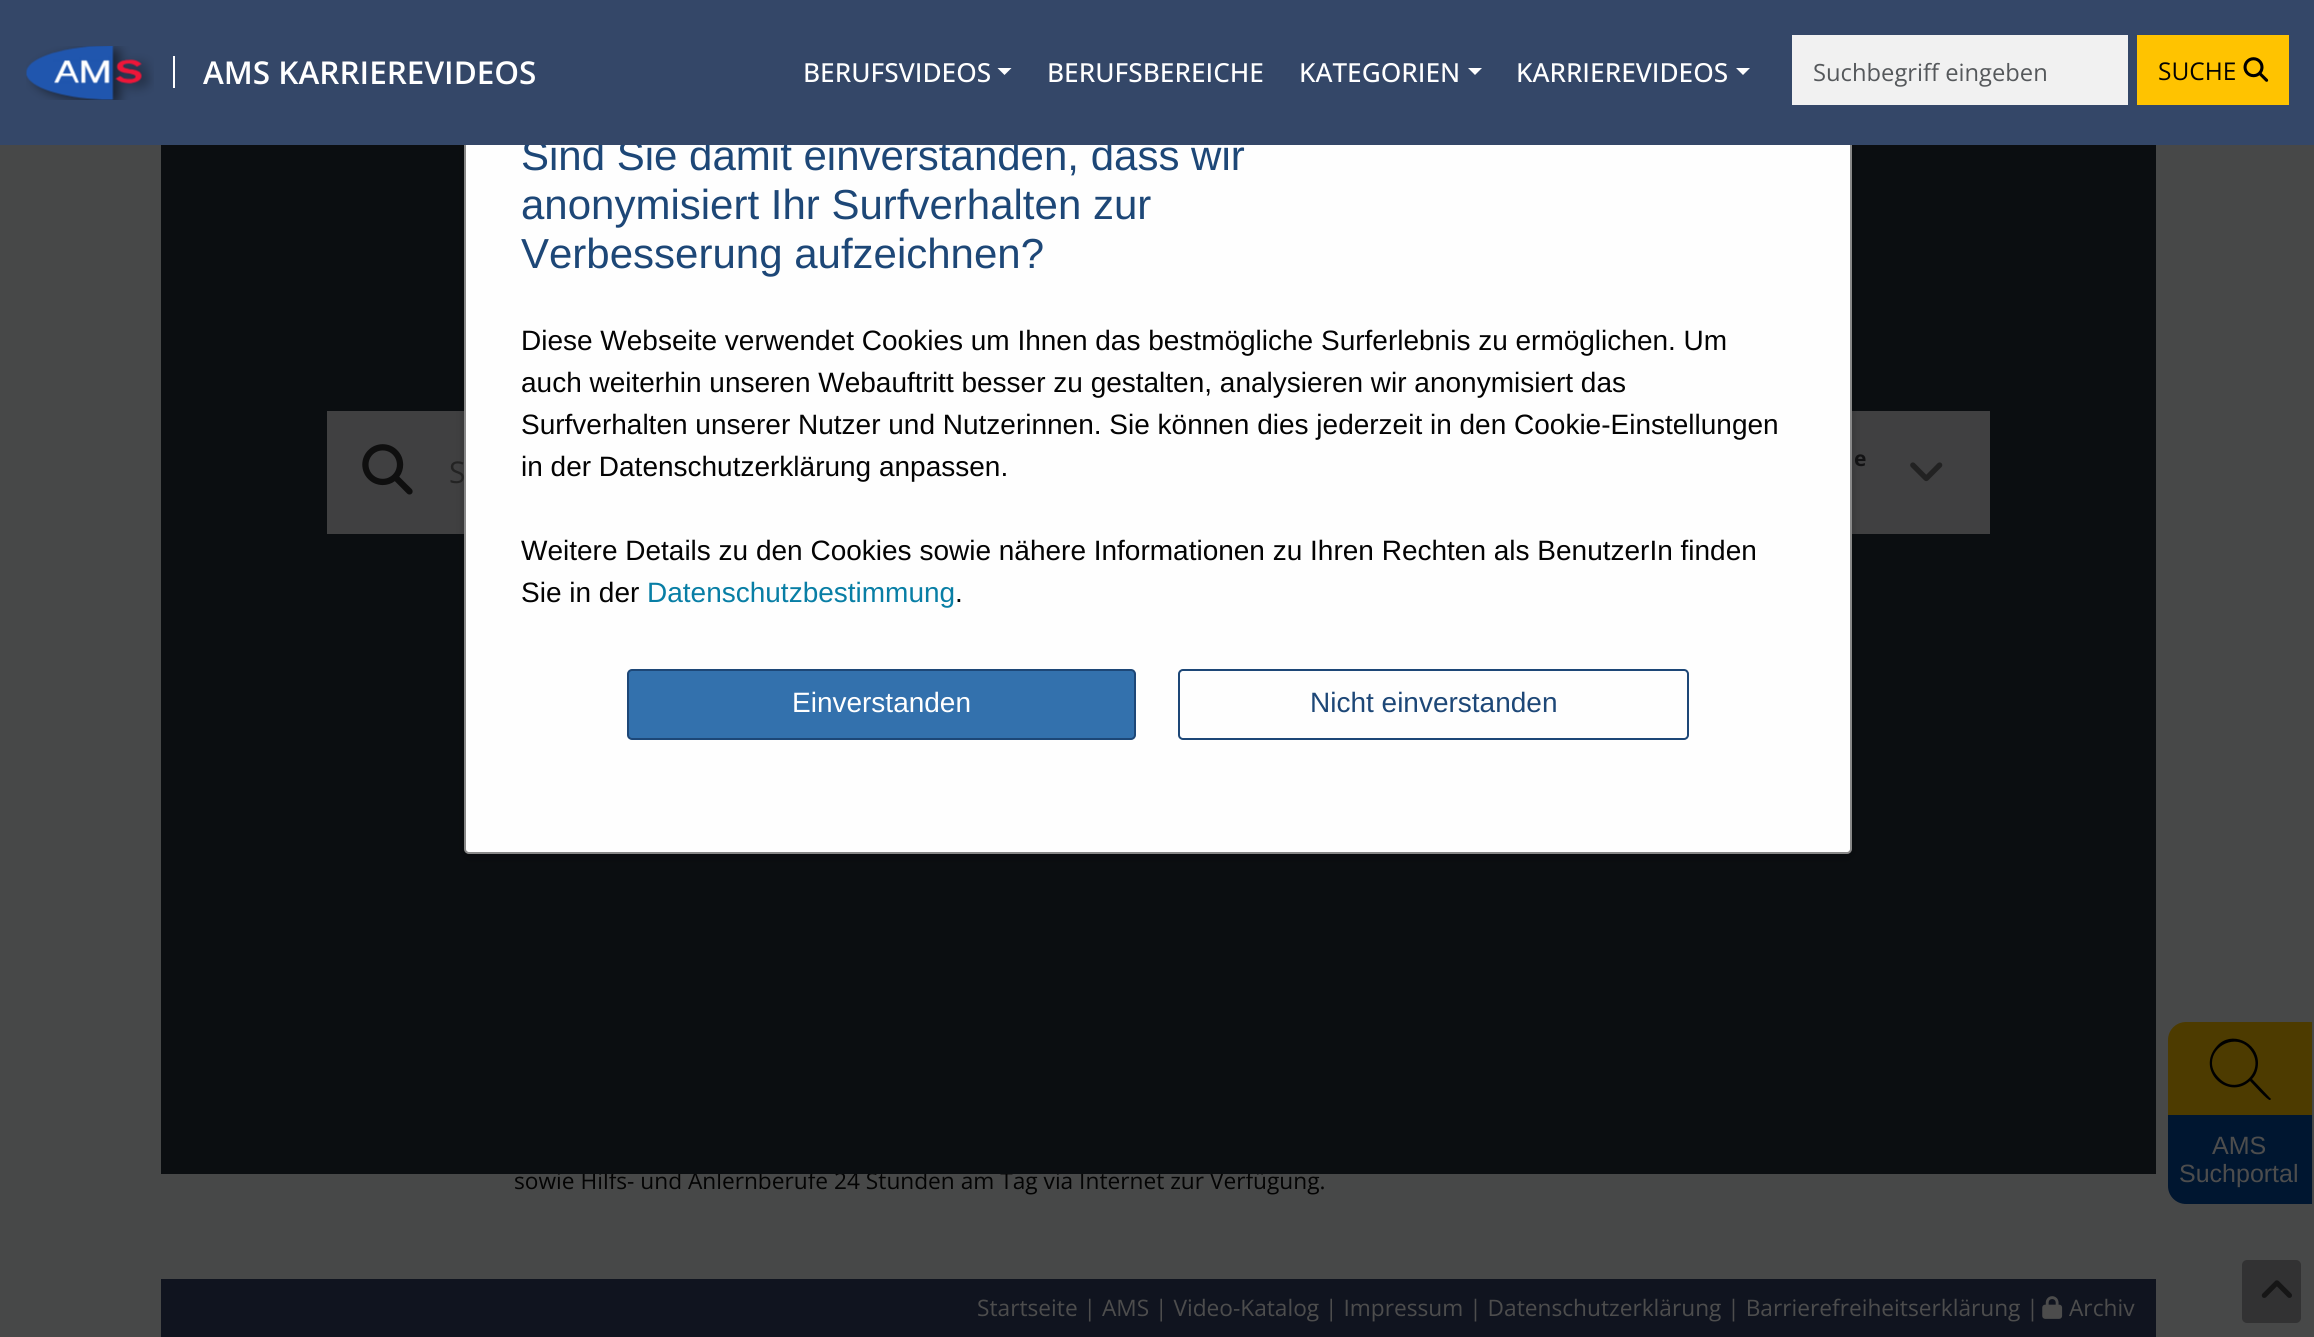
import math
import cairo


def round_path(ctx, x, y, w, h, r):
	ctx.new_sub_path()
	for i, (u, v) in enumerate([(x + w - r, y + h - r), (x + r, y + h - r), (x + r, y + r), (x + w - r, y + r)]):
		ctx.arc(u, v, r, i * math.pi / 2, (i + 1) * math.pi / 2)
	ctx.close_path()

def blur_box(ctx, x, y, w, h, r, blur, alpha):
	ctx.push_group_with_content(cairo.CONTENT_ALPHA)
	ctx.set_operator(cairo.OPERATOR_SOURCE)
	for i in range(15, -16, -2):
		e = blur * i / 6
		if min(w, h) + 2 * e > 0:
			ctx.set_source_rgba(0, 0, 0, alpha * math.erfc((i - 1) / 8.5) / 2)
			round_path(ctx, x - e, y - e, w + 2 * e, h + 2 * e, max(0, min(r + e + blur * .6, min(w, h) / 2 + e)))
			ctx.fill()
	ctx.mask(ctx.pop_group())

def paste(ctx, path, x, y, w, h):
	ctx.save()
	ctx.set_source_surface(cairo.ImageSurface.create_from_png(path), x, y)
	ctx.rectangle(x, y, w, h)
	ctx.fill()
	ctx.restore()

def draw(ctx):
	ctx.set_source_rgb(0.278, 0.282, 0.282)
	ctx.paint()
	ctx.select_font_face('Open Sans')
	ctx.set_font_size(22.7)
	ctx.set_source_rgb(0.012, 0.012, 0.012)
	ctx.move_to(514, 1189)
	ctx.show_text('sowie Hilfs- und Anlernberufe 24 Stunden am Tag via Internet zur Verfügung.')
	ctx.set_source_rgb(0.059, 0.059, 0.059)
	ctx.rectangle(161, 145, 1995, 1029)
	ctx.fill()
	ctx.set_source_rgba(0.012, 0.047, 0.082, 0.3)
	ctx.rectangle(161, 145, 1995, 1029)
	ctx.fill()
	ctx.set_source_rgb(0.251, 0.251, 0.255)
	ctx.rectangle(327, 411, 137, 123)
	ctx.rectangle(1852, 411, 138, 123)
	ctx.fill()
	ctx.set_source_rgb(0, 0, 0)
	blur_box(ctx, 464, 60, 1388, 798, 5, 4.5, 0.2)
	ctx.set_source_rgb(0.996, 0.996, 0.996)
	round_path(ctx, 465, 57, 1386, 796, 4)
	ctx.fill_preserve()
	ctx.set_source_rgb(0.533, 0.533, 0.533)
	ctx.stroke()
	ctx.select_font_face('Liberation Sans')
	ctx.set_font_size(42)
	ctx.set_source_rgb(0.114, 0.278, 0.467)
	ctx.move_to(521, 170)
	ctx.show_text('Sind Sie damit einverstanden, dass wir')
	ctx.set_source_rgb(0.204, 0.278, 0.408)
	ctx.rectangle(0, 0, 2314, 145)
	ctx.fill()
	paste(ctx, 'media/1.png', 26, 46, 128, 54)
	ctx.set_source_rgb(1, 1, 1)
	ctx.rectangle(173, 56, 2, 32)
	ctx.fill()
	ctx.select_font_face('Open Sans SemiBold')
	ctx.set_font_size(31.5)
	ctx.move_to(203, 84)
	ctx.show_text('AMS KARRIEREVIDEOS')
	ctx.select_font_face('Open Sans Medium')
	ctx.set_font_size(26.25)
	ctx.move_to(803, 82)
	ctx.show_text('BERUFSVIDEOS')
	ctx.new_path()
	ctx.move_to(997.5, 68)
	ctx.line_to(1011.5, 68)
	ctx.line_to(1004.5, 75)
	ctx.close_path()
	ctx.fill()
	ctx.move_to(1047, 82)
	ctx.show_text('BERUFSBEREICHE')
	ctx.move_to(1299, 82)
	ctx.show_text('KATEGORIEN')
	ctx.new_path()
	ctx.move_to(1468, 68)
	ctx.line_to(1482, 68)
	ctx.line_to(1475, 75)
	ctx.close_path()
	ctx.fill()
	ctx.move_to(1516, 82)
	ctx.show_text('KARRIEREVIDEOS')
	ctx.new_path()
	ctx.move_to(1736, 68)
	ctx.line_to(1750, 68)
	ctx.line_to(1743, 75)
	ctx.close_path()
	ctx.fill()
	ctx.set_source_rgb(0.945, 0.945, 0.945)
	ctx.rectangle(1792, 35, 336, 70)
	ctx.fill()
	ctx.select_font_face('Open Sans')
	ctx.set_font_size(23.75)
	ctx.set_source_rgb(0.333, 0.345, 0.357)
	ctx.move_to(1813, 81)
	ctx.show_text('Suchbegriff eingeben')
	ctx.set_source_rgb(1, 0.765, 0)
	ctx.rectangle(2137, 35, 152, 70)
	ctx.fill()
	ctx.set_font_size(24.5)
	ctx.set_source_rgb(0.012, 0.012, 0.012)
	ctx.move_to(2158, 80)
	ctx.show_text('SUCHE')
	paste(ctx, 'media/2.png', 2243, 57, 26, 25)
	ctx.select_font_face('Liberation Sans')
	ctx.set_font_size(42)
	ctx.set_source_rgb(0.114, 0.278, 0.467)
	ctx.move_to(521, 219)
	ctx.show_text('anonymisiert Ihr Surfverhalten zur')
	ctx.move_to(521, 268)
	ctx.show_text('Verbesserung aufzeichnen?')
	ctx.set_font_size(28)
	ctx.set_source_rgb(0.012, 0.012, 0.012)
	for x, y, s in [
		(521, 350, 'Diese Webseite verwendet Cookies um Ihnen das bestmögliche Surferlebnis zu ermöglichen. Um'),
		(521, 392, 'auch weiterhin unseren Webauftritt besser zu gestalten, analysieren wir anonymisiert das'),
		(521, 434, 'Surfverhalten unserer Nutzer und Nutzerinnen. Sie können dies jederzeit in den Cookie-Einstellungen'),
		(521, 476, 'in der Datenschutzerklärung anpassen.'),
		(521, 560, 'Weitere Details zu den Cookies sowie nähere Informationen zu Ihren Rechten als BenutzerIn finden'),
		(521, 602, 'Sie in der'),
	]:
		ctx.move_to(x, y)
		ctx.show_text(s)
	ctx.set_source_rgb(0.035, 0.494, 0.647)
	ctx.move_to(647, 602)
	ctx.show_text('Datenschutzbestimmung')
	ctx.set_source_rgb(0.012, 0.012, 0.012)
	ctx.move_to(955, 602)
	ctx.show_text('.')
	ctx.set_source_rgb(0.2, 0.443, 0.678)
	round_path(ctx, 628, 670, 507, 69, 4)
	ctx.fill_preserve()
	ctx.set_source_rgb(0.114, 0.278, 0.467)
	ctx.stroke()
	ctx.set_source_rgb(1, 1, 1)
	ctx.move_to(792, 712)
	ctx.show_text('Einverstanden')
	round_path(ctx, 1179, 670, 509, 69, 4)
	ctx.set_source_rgb(0.114, 0.278, 0.467)
	ctx.stroke()
	ctx.move_to(1310, 712)
	ctx.show_text('Nicht einverstanden')
	paste(ctx, 'media/3.png', 362, 444, 51, 51)
	ctx.select_font_face('Open Sans')
	ctx.set_font_size(30)
	ctx.set_source_rgb(0.137, 0.137, 0.137)
	ctx.move_to(449, 483)
	ctx.show_text('S')
	ctx.select_font_face('Open Sans', cairo.FONT_SLANT_NORMAL, cairo.FONT_WEIGHT_BOLD)
	ctx.set_font_size(21)
	ctx.set_source_rgb(0.075, 0.078, 0.082)
	ctx.move_to(1854, 466)
	ctx.show_text('e')
	paste(ctx, 'media/4.png', 1910, 462, 33, 20)
	ctx.set_source_rgb(0.302, 0.231, 0)
	ctx.new_path()
	ctx.move_to(2186, 1022)
	ctx.line_to(2312, 1022)
	ctx.line_to(2312, 1115)
	ctx.line_to(2168, 1115)
	ctx.line_to(2168, 1040)
	ctx.curve_to(2168, 1030, 2176, 1022, 2186, 1022)
	ctx.close_path()
	ctx.fill()
	ctx.set_source_rgb(0, 0, 0)
	ctx.new_path()
	ctx.move_to(2270, 1098)
	ctx.line_to(2252, 1079)
	ctx.curve_to(2256, 1075, 2258, 1069, 2258, 1063)
	ctx.curve_to(2258, 1042, 2231, 1030, 2217, 1046)
	ctx.curve_to(2195, 1070, 2228, 1101, 2250, 1081)
	ctx.curve_to(2253, 1084, 2268, 1101, 2270, 1100)
	ctx.curve_to(2271, 1100, 2271, 1098, 2270, 1098)
	ctx.close_path()
	ctx.move_to(2219, 1078)
	ctx.curve_to(2215, 1074, 2212, 1069, 2212, 1063)
	ctx.curve_to(2212, 1045, 2236, 1034, 2249, 1048)
	ctx.curve_to(2269, 1070, 2238, 1098, 2219, 1078)
	ctx.close_path()
	ctx.fill()
	ctx.set_source_rgb(0, 0.086, 0.188)
	ctx.new_path()
	ctx.move_to(2168, 1115)
	ctx.line_to(2312, 1115)
	ctx.line_to(2312, 1204)
	ctx.line_to(2186, 1204)
	ctx.curve_to(2176, 1204, 2168, 1196, 2168, 1186)
	ctx.close_path()
	ctx.fill()
	ctx.select_font_face('Liberation Sans')
	ctx.set_font_size(25)
	ctx.set_source_rgb(0.302, 0.302, 0.302)
	ctx.move_to(2212, 1154)
	ctx.show_text('AMS')
	ctx.move_to(2179, 1182)
	ctx.show_text('Suchportal')
	ctx.set_source_rgb(0.063, 0.082, 0.122)
	ctx.rectangle(161, 1279, 1995, 58)
	ctx.fill()
	ctx.select_font_face('Open Sans')
	ctx.set_font_size(22.7)
	ctx.set_source_rgb(0.302, 0.302, 0.302)
	ctx.move_to(977, 1316)
	ctx.show_text('Startseite | AMS | Video-Katalog | Impressum | Datenschutzerklärung | Barrierefreiheitserklärung |')
	paste(ctx, 'media/5.png', 2042, 1296, 21, 23)
	ctx.move_to(2069, 1316)
	ctx.show_text('Archiv')
	ctx.set_source_rgb(0.196, 0.196, 0.2)
	round_path(ctx, 2242, 1260, 59, 63, 5)
	ctx.fill()
	paste(ctx, 'media/6.png', 2261, 1280, 31, 18)


surface = cairo.ImageSurface(cairo.FORMAT_RGB24, 2314, 1337)
ctx = cairo.Context(surface)
options = cairo.FontOptions()
options.set_hint_metrics(cairo.HINT_METRICS_OFF)
options.set_hint_style(cairo.HINT_STYLE_NONE)
ctx.set_font_options(options)
ctx.set_miter_limit(4)
draw(ctx)
surface.write_to_png('image.png')
